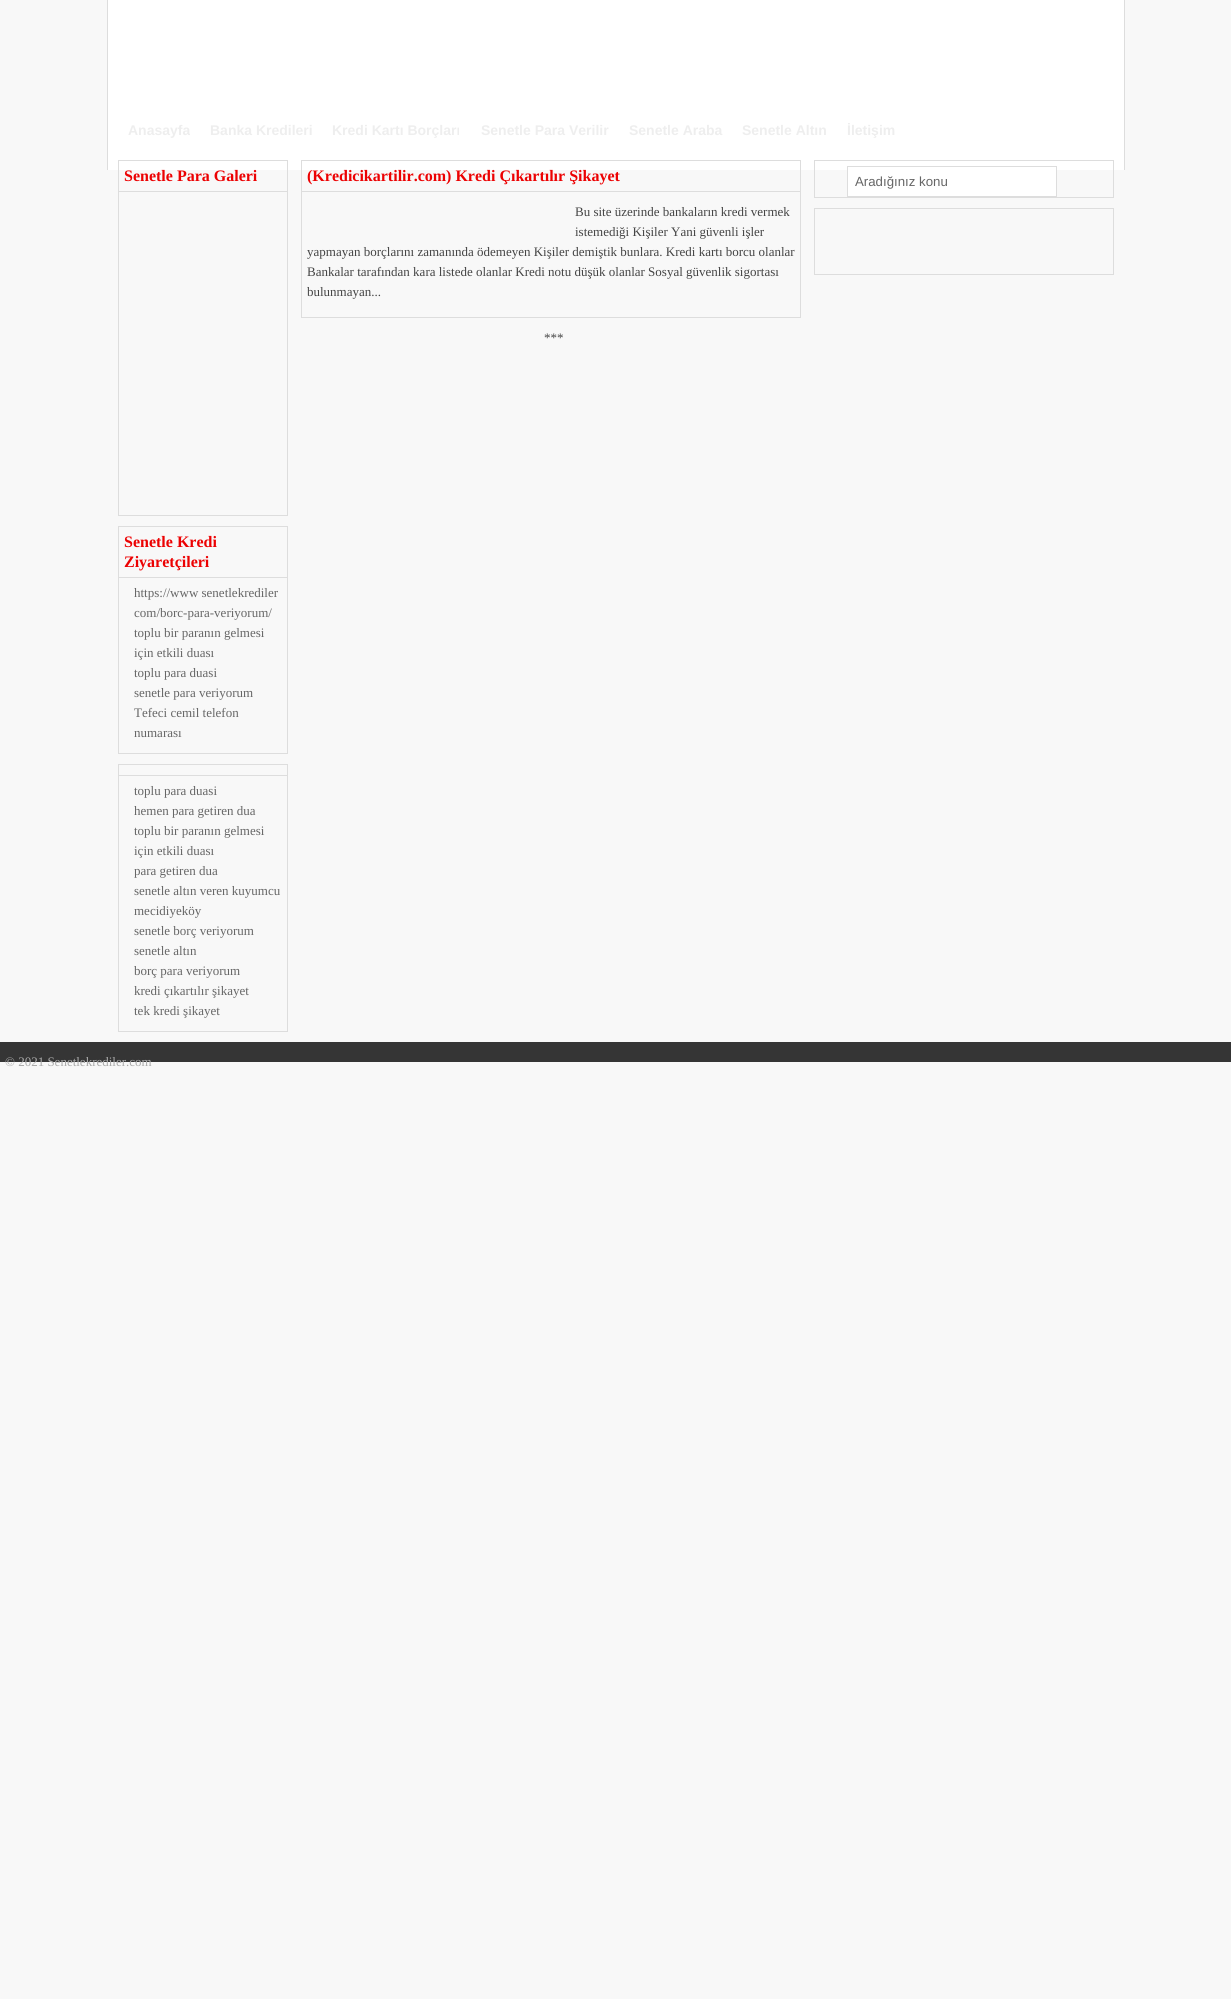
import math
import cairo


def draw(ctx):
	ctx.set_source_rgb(0.969, 0.969, 0.969)
	ctx.paint()
	ctx.set_source_rgb(1, 1, 1)
	ctx.rectangle(108, 0, 1016, 170)
	ctx.fill()
	ctx.set_source_rgb(0.867, 0.867, 0.867)
	ctx.rectangle(1124, 0, 1, 170)
	ctx.rectangle(107, 0, 1, 170)
	ctx.fill()
	ctx.select_font_face('Liberation Sans', cairo.FONT_SLANT_NORMAL, cairo.FONT_WEIGHT_BOLD)
	ctx.set_font_size(14)
	ctx.set_source_rgb(0.933, 0.933, 0.933)
	for x, y, s in [
		(128, 135, 'Anasayfa'),
		(210, 135, 'Banka Kredileri'),
		(332, 135, 'Kredi Kartı Borçları'),
		(481, 135, 'Senetle Para Verilir'),
		(629, 135, 'Senetle Araba'),
		(742, 135, 'Senetle Altın'),
		(847, 135, 'İletişim'),
	]:
		ctx.move_to(x, y)
		ctx.show_text(s)
	ctx.rectangle(118.5, 160.5, 169, 355)
	ctx.set_source_rgb(0.867, 0.867, 0.867)
	ctx.set_line_width(1)
	ctx.stroke()
	ctx.rectangle(119, 191, 168, 1)
	ctx.fill()
	ctx.select_font_face('Liberation Serif', cairo.FONT_SLANT_NORMAL, cairo.FONT_WEIGHT_BOLD)
	ctx.set_font_size(16)
	ctx.set_source_rgb(0.922, 0.004, 0.008)
	ctx.move_to(124, 181)
	ctx.show_text('Senetle Para Galeri')
	ctx.rectangle(118.5, 526.5, 169, 227)
	ctx.set_source_rgb(0.867, 0.867, 0.867)
	ctx.stroke()
	ctx.rectangle(119, 577, 168, 1)
	ctx.fill()
	ctx.set_source_rgb(0.922, 0.004, 0.008)
	ctx.move_to(124, 547)
	ctx.show_text('Senetle Kredi')
	ctx.move_to(124, 567)
	ctx.show_text('Ziyaretçileri')
	ctx.select_font_face('Liberation Serif')
	ctx.set_font_size(13)
	ctx.set_source_rgb(0.4, 0.4, 0.4)
	for x, y, s in [
		(134, 597, 'https://www senetlekrediler'),
		(134, 617, 'com/borc-para-veriyorum/'),
		(134, 637, 'toplu bir paranın gelmesi'),
		(134, 657, 'için etkili duası'),
		(134, 677, 'toplu para duasi'),
		(134, 697, 'senetle para veriyorum'),
		(134, 717, 'Tefeci cemil telefon'),
		(134, 737, 'numarası'),
	]:
		ctx.move_to(x, y)
		ctx.show_text(s)
	ctx.rectangle(118.5, 764.5, 169, 267)
	ctx.set_source_rgb(0.867, 0.867, 0.867)
	ctx.stroke()
	ctx.rectangle(119, 775, 168, 1)
	ctx.fill()
	ctx.set_source_rgb(0.4, 0.4, 0.4)
	for x, y, s in [
		(134, 795, 'toplu para duasi'),
		(134, 815, 'hemen para getiren dua'),
		(134, 835, 'toplu bir paranın gelmesi'),
		(134, 855, 'için etkili duası'),
		(134, 875, 'para getiren dua'),
		(134, 895, 'senetle altın veren kuyumcu'),
		(134, 915, 'mecidiyeköy'),
		(134, 935, 'senetle borç veriyorum'),
		(134, 955, 'senetle altın'),
		(134, 975, 'borç para veriyorum'),
		(134, 995, 'kredi çıkartılır şikayet'),
		(134, 1015, 'tek kredi şikayet'),
	]:
		ctx.move_to(x, y)
		ctx.show_text(s)
	ctx.rectangle(301.5, 160.5, 499, 157)
	ctx.set_source_rgb(0.867, 0.867, 0.867)
	ctx.stroke()
	ctx.rectangle(302, 191, 498, 1)
	ctx.fill()
	ctx.select_font_face('Liberation Serif', cairo.FONT_SLANT_NORMAL, cairo.FONT_WEIGHT_BOLD)
	ctx.set_font_size(16)
	ctx.set_source_rgb(0.922, 0.004, 0.008)
	ctx.move_to(307, 181)
	ctx.show_text('(Kredicikartilir.com) Kredi Çıkartılır Şikayet')
	ctx.select_font_face('Liberation Serif')
	ctx.set_font_size(13)
	ctx.set_source_rgb(0.267, 0.267, 0.267)
	for x, y, s in [
		(575, 216, 'Bu site üzerinde bankaların kredi vermek'),
		(575, 236, 'istemediği Kişiler Yani güvenli işler'),
		(307, 256, 'yapmayan borçlarını zamanında ödemeyen Kişiler demiştik bunlara. Kredi kartı borcu olanlar'),
		(307, 276, 'Bankalar tarafından kara listede olanlar Kredi notu düşük olanlar Sosyal güvenlik sigortası'),
		(307, 296, 'bulunmayan...'),
		(544, 342, '***'),
	]:
		ctx.move_to(x, y)
		ctx.show_text(s)
	ctx.rectangle(814.5, 160.5, 299, 37)
	ctx.set_source_rgb(0.867, 0.867, 0.867)
	ctx.stroke()
	ctx.set_source_rgb(1, 1, 1)
	ctx.rectangle(848, 170, 208, 26)
	ctx.fill()
	ctx.rectangle(847.5, 166.5, 209, 30)
	ctx.set_source_rgb(0.867, 0.867, 0.867)
	ctx.stroke()
	ctx.select_font_face('Liberation Sans')
	ctx.set_font_size(13.25)
	ctx.set_source_rgb(0.4, 0.4, 0.4)
	ctx.move_to(855, 186)
	ctx.show_text('Aradığınız konu')
	ctx.rectangle(814.5, 208.5, 299, 66)
	ctx.set_source_rgb(0.867, 0.867, 0.867)
	ctx.stroke()
	ctx.set_source_rgb(0.208, 0.208, 0.208)
	ctx.rectangle(0, 1042, 1231, 20)
	ctx.fill()
	ctx.select_font_face('Liberation Serif')
	ctx.set_font_size(13)
	ctx.set_source_rgb(0.667, 0.667, 0.667)
	ctx.move_to(5, 1066)
	ctx.show_text('© 2021 Senetlekrediler.com')


surface = cairo.ImageSurface(cairo.FORMAT_RGB24, 1231, 1999)
ctx = cairo.Context(surface)
options = cairo.FontOptions()
options.set_hint_metrics(cairo.HINT_METRICS_OFF)
options.set_hint_style(cairo.HINT_STYLE_NONE)
ctx.set_font_options(options)
ctx.set_miter_limit(4)
draw(ctx)
surface.write_to_png('image.png')
